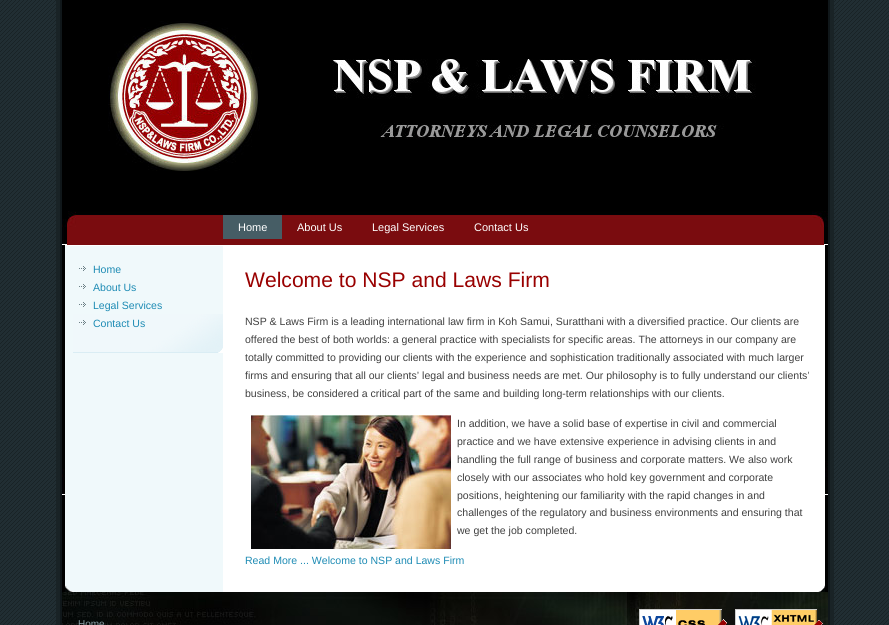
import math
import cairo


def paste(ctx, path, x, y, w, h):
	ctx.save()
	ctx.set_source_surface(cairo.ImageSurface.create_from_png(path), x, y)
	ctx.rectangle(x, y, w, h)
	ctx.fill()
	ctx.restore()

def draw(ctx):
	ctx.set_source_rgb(1, 1, 1)
	ctx.paint()
	paste(ctx, 'media/1.png', 0, 0, 889, 625)
	ctx.set_source_rgb(0, 0, 0)
	ctx.rectangle(62, 0, 766, 21)
	ctx.fill()
	paste(ctx, 'media/2.png', 62, 21, 766, 571)
	ctx.set_source_rgb(0.098, 0.137, 0.149)
	ctx.rectangle(830, 0, 4, 625)
	ctx.rectangle(56, 0, 4, 625)
	ctx.fill()
	ctx.set_source_rgb(0.063, 0.09, 0.102)
	ctx.rectangle(828, 0, 2, 625)
	ctx.rectangle(60, 0, 2, 625)
	ctx.fill()
	ctx.set_source_rgb(0.275, 0.365, 0.396)
	ctx.rectangle(223, 215, 59, 24)
	ctx.fill()
	ctx.select_font_face('Liberation Sans')
	ctx.set_font_size(11)
	ctx.set_source_rgb(1, 1, 1)
	for x, y, s in [
		(238, 231, 'Home'),
		(297, 231, 'About Us'),
		(372, 231, 'Legal Services'),
		(474, 231, 'Contact Us'),
	]:
		ctx.move_to(x, y)
		ctx.show_text(s)
	ctx.set_source_rgb(0.941, 0.973, 0.984)
	ctx.rectangle(65, 246, 158, 346)
	ctx.fill()
	paste(ctx, 'media/3.png', 65, 585, 8, 7)
	ctx.set_source_rgb(1, 1, 1)
	ctx.rectangle(65, 245, 760, 1)
	ctx.fill()
	ctx.rectangle(223, 246, 602, 346)
	ctx.fill()
	paste(ctx, 'media/4.png', 818, 585, 7, 7)
	paste(ctx, 'media/5.png', 73, 314, 150, 39)
	paste(ctx, 'media/6.png', 79, 266, 7, 5)
	ctx.set_font_size(10.55)
	ctx.set_source_rgb(0.114, 0.545, 0.706)
	ctx.move_to(93, 273)
	ctx.show_text('Home')
	paste(ctx, 'media/6.png', 79, 284, 7, 5)
	ctx.move_to(93, 291)
	ctx.show_text('About Us')
	paste(ctx, 'media/6.png', 79, 302, 7, 5)
	ctx.move_to(93, 309)
	ctx.show_text('Legal Services')
	paste(ctx, 'media/7.png', 79, 320, 7, 5)
	ctx.move_to(93, 327)
	ctx.show_text('Contact Us')
	ctx.set_font_size(21.1)
	ctx.set_source_rgb(0.6, 0, 0)
	ctx.move_to(245, 287)
	ctx.show_text('Welcome to NSP and Laws Firm')
	ctx.set_font_size(10.55)
	ctx.set_source_rgb(0.251, 0.251, 0.251)
	for x, y, s in [
		(245, 325, 'NSP & Laws Firm is a leading international law firm in Koh Samui, Suratthani with a diversified practice. Our clients are'),
		(245, 343, 'offered the best of both worlds: a general practice with specialists for specific areas. The attorneys in our company are'),
		(245, 361, 'totally committed to providing our clients with the experience and sophistication traditionally associated with much larger'),
		(245, 379, 'firms and ensuring that all our clients’ legal and business needs are met. Our philosophy is to fully understand our clients’'),
		(245, 397, 'business, be considered a critical part of the same and building long-term relationships with our clients.'),
	]:
		ctx.move_to(x, y)
		ctx.show_text(s)
	paste(ctx, 'media/8.png', 251, 415, 200, 134)
	for x, y, s in [
		(457, 427, 'In addition, we have a solid base of expertise in civil and commercial'),
		(457, 445, 'practice and we have extensive experience in advising clients in and'),
		(457, 463, 'handling the full range of business and corporate matters. We also work'),
		(457, 481, 'closely with our associates who hold key government and corporate'),
		(457, 499, 'positions, heightening our familiarity with the rapid changes in and'),
		(457, 516, 'challenges of the regulatory and business environments and ensuring that'),
		(457, 534, 'we get the job completed.'),
	]:
		ctx.move_to(x, y)
		ctx.show_text(s)
	ctx.set_source_rgb(0.114, 0.545, 0.706)
	ctx.move_to(245, 564)
	ctx.show_text('Read More ... Welcome to NSP and Laws Firm')
	paste(ctx, 'media/9.png', 62, 592, 766, 33)
	ctx.set_font_size(10)
	ctx.set_source_rgb(0.533, 0.616, 0.643)
	ctx.move_to(78, 627)
	ctx.show_text('Home')
	paste(ctx, 'media/10.png', 639, 609, 88, 16)
	paste(ctx, 'media/11.png', 735, 609, 88, 16)


surface = cairo.ImageSurface(cairo.FORMAT_RGB24, 889, 625)
ctx = cairo.Context(surface)
options = cairo.FontOptions()
options.set_hint_metrics(cairo.HINT_METRICS_OFF)
options.set_hint_style(cairo.HINT_STYLE_NONE)
ctx.set_font_options(options)
ctx.set_miter_limit(4)
draw(ctx)
surface.write_to_png('image.png')
